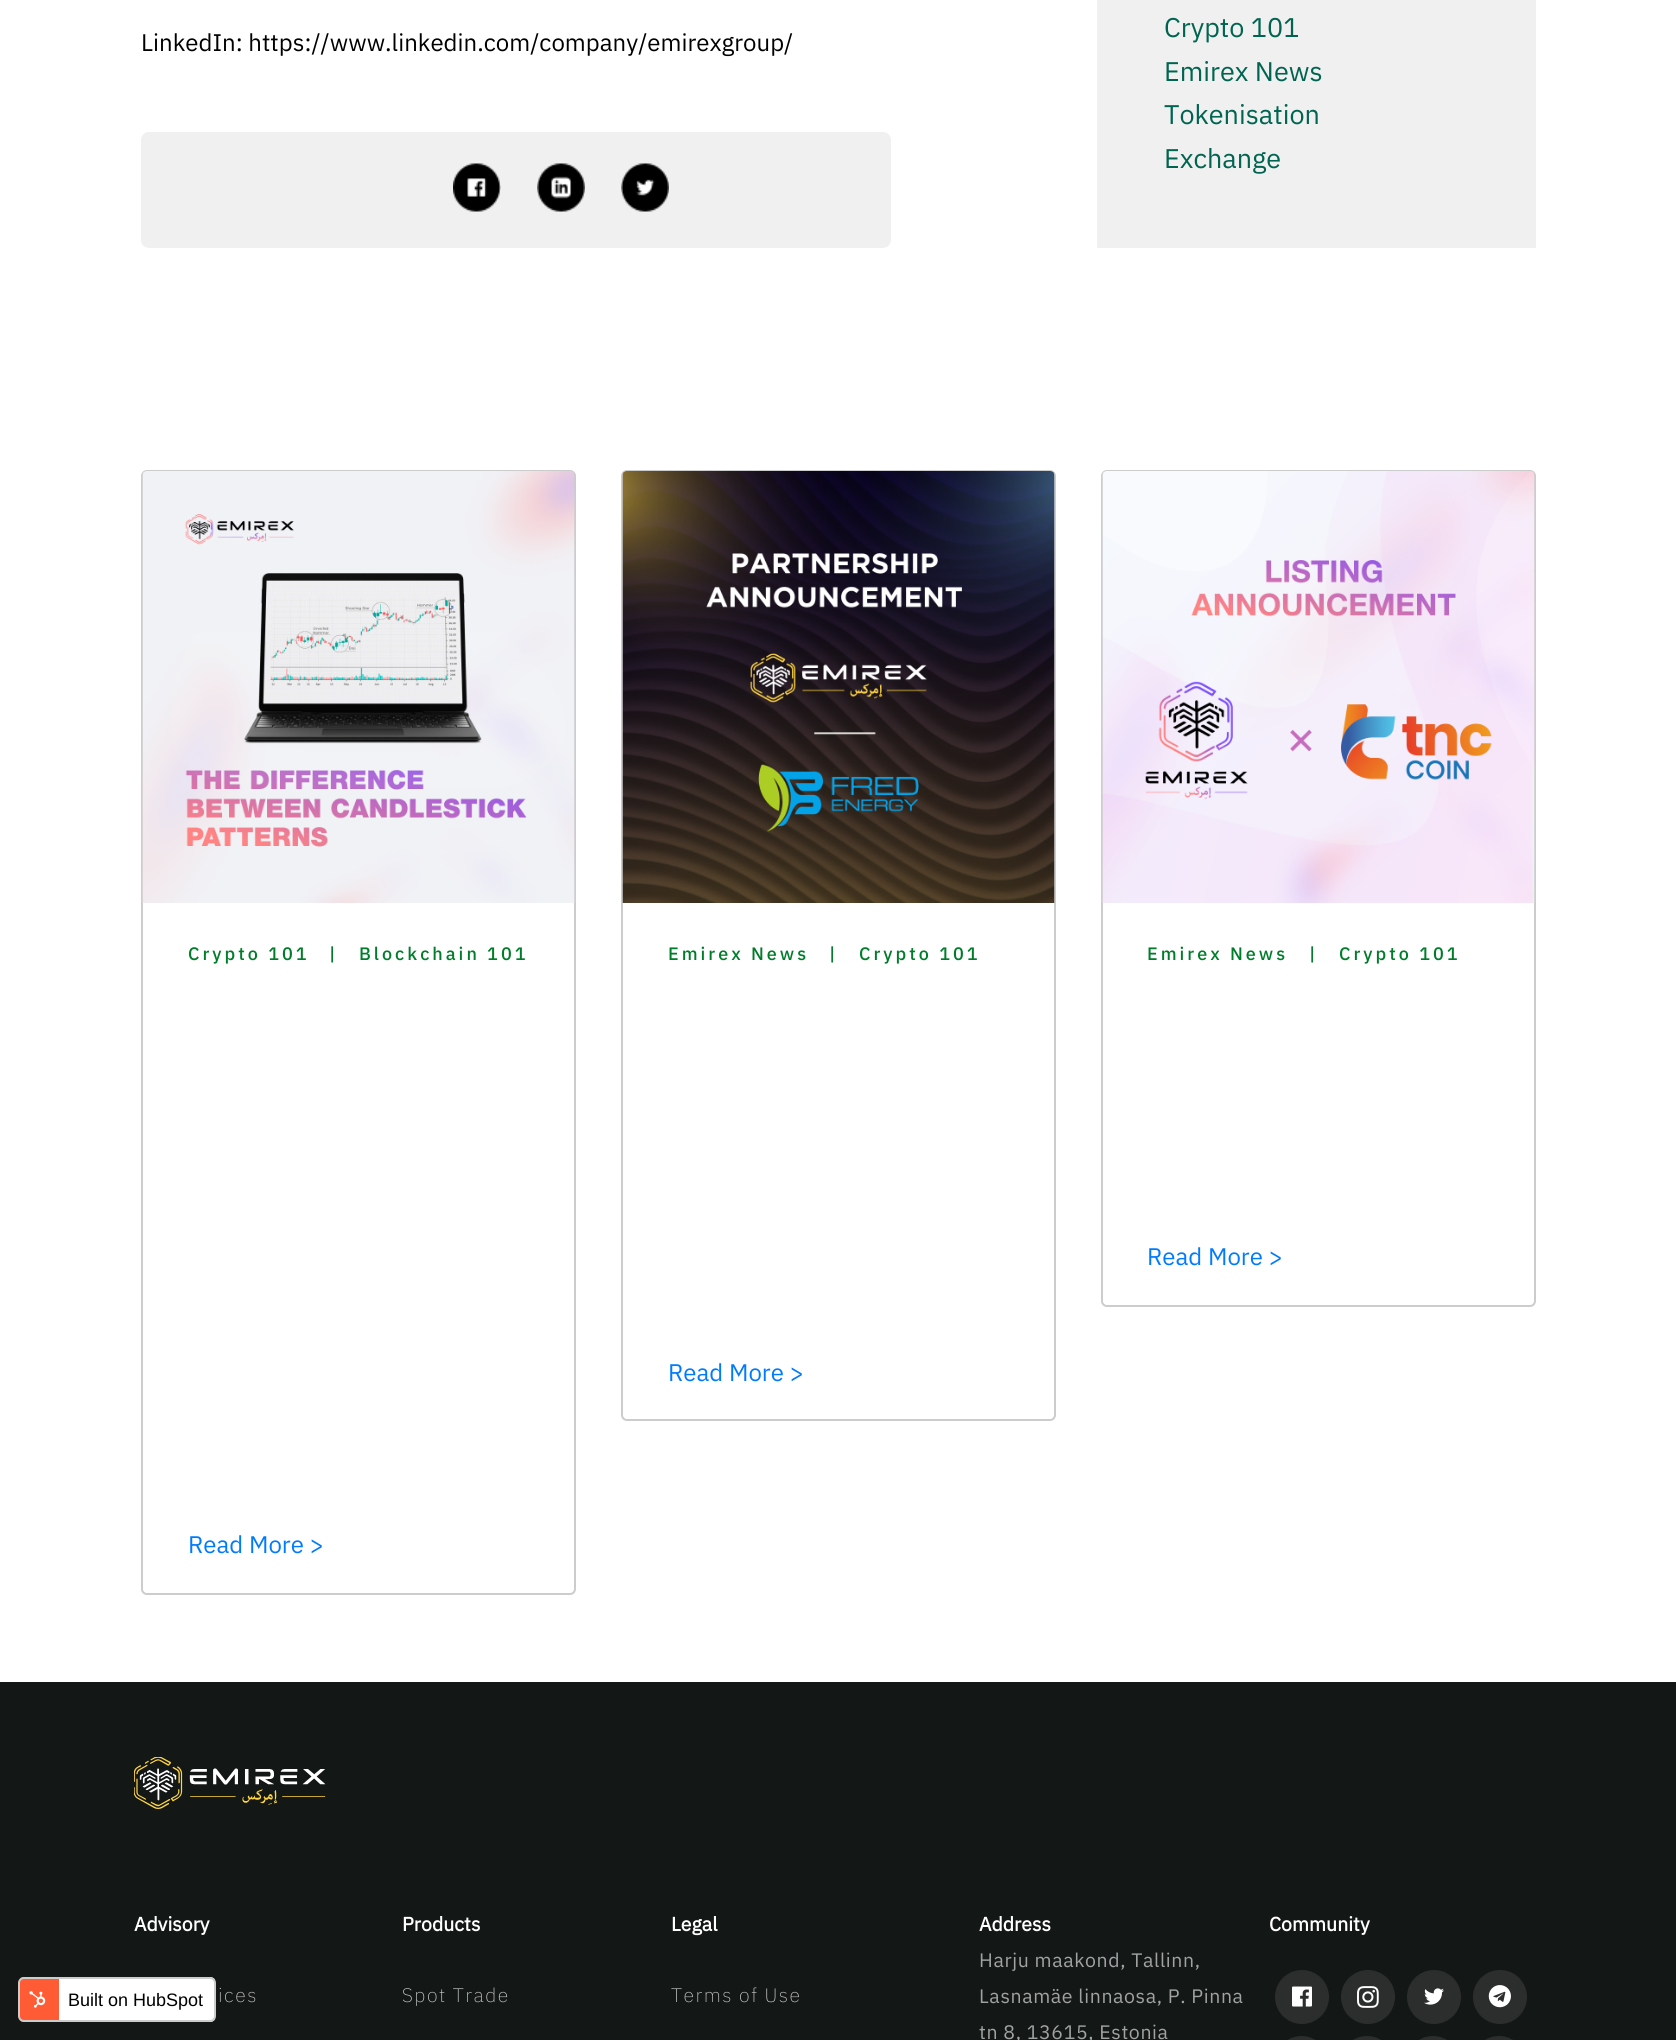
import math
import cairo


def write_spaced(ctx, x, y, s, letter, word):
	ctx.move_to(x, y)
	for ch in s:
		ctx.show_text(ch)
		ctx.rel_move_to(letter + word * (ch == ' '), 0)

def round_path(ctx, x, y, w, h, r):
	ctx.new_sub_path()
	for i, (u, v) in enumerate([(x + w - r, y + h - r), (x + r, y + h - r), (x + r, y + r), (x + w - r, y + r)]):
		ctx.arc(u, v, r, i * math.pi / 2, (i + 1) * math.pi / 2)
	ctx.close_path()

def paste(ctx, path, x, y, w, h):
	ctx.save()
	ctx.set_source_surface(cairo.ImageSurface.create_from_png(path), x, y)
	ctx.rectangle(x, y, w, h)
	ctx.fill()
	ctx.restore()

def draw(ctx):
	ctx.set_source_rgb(1, 1, 1)
	ctx.paint()
	ctx.select_font_face('IBM Plex Sans')
	ctx.set_font_size(24)
	ctx.set_source_rgb(0, 0, 0)
	ctx.move_to(141, 51)
	ctx.show_text('LinkedIn: https://www.linkedin.com/company/emirexgroup/')
	ctx.set_source_rgb(0.941, 0.941, 0.941)
	round_path(ctx, 141, 132, 750, 116, 8)
	ctx.fill()
	paste(ctx, 'media/1.png', 453, 163, 48, 49)
	paste(ctx, 'media/2.png', 537, 163, 48, 49)
	paste(ctx, 'media/3.png', 621, 163, 48, 49)
	ctx.rectangle(1097, 0, 439, 248)
	ctx.fill()
	ctx.set_font_size(27)
	ctx.set_source_rgb(0, 0.392, 0.314)
	for x, y, s in [
		(1164, 37, 'Crypto 101'),
		(1164, 81, 'Emirex News'),
		(1164, 124, 'Tokenisation'),
		(1164, 168, 'Exchange'),
	]:
		ctx.move_to(x, y)
		ctx.show_text(s)
	round_path(ctx, 142, 471, 433, 1123, 5)
	ctx.set_source_rgb(0.8, 0.8, 0.8)
	ctx.stroke()
	paste(ctx, 'media/4.png', 142, 471, 433, 432)
	ctx.select_font_face('IBM Plex Sans Medium')
	ctx.set_font_size(18)
	ctx.set_source_rgb(0, 0.49, 0.165)
	for x, y, s in [
		(188, 960, 'Crypto 101'),
		(329, 960, '|'),
		(359, 960, 'Blockchain 101'),
	]:
		write_spaced(ctx, x, y, s, 3, 0)
	ctx.select_font_face('IBM Plex Sans')
	ctx.set_font_size(24)
	ctx.set_source_rgb(0, 0.482, 1)
	ctx.move_to(188, 1553)
	ctx.show_text('Read More >')
	round_path(ctx, 622, 471, 433, 949, 5)
	ctx.set_source_rgb(0.8, 0.8, 0.8)
	ctx.stroke()
	paste(ctx, 'media/5.png', 622, 471, 433, 432)
	ctx.select_font_face('IBM Plex Sans Medium')
	ctx.set_font_size(18)
	ctx.set_source_rgb(0, 0.49, 0.165)
	for x, y, s in [
		(668, 960, 'Emirex News'),
		(829, 960, '|'),
		(859, 960, 'Crypto 101'),
	]:
		write_spaced(ctx, x, y, s, 3, 0)
	ctx.select_font_face('IBM Plex Sans')
	ctx.set_font_size(24)
	ctx.set_source_rgb(0, 0.482, 1)
	ctx.move_to(668, 1381)
	ctx.show_text('Read More >')
	round_path(ctx, 1102, 471, 433, 835, 5)
	ctx.set_source_rgb(0.8, 0.8, 0.8)
	ctx.stroke()
	paste(ctx, 'media/6.png', 1102, 471, 433, 432)
	ctx.select_font_face('IBM Plex Sans Medium')
	ctx.set_font_size(18)
	ctx.set_source_rgb(0, 0.49, 0.165)
	for x, y, s in [
		(1147, 960, 'Emirex News'),
		(1309, 960, '|'),
		(1339, 960, 'Crypto 101'),
	]:
		write_spaced(ctx, x, y, s, 3, 0)
	ctx.select_font_face('IBM Plex Sans')
	ctx.set_font_size(24)
	ctx.set_source_rgb(0, 0.482, 1)
	ctx.move_to(1147, 1265)
	ctx.show_text('Read More >')
	ctx.set_source_rgb(0.075, 0.09, 0.086)
	ctx.rectangle(0, 1682, 1676, 358)
	ctx.fill()
	paste(ctx, 'media/7.png', 134, 1757, 192, 52)
	ctx.select_font_face('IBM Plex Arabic', cairo.FONT_SLANT_NORMAL, cairo.FONT_WEIGHT_BOLD)
	ctx.set_font_size(19.5)
	ctx.set_source_rgb(1, 1, 1)
	ctx.move_to(134, 1931)
	ctx.show_text('Advisory')
	ctx.select_font_face('IBM Plex Arabic ExtraLight')
	ctx.set_source_rgb(0.816, 0.82, 0.816)
	write_spaced(ctx, 218, 2002, 'ices', 1.5, 0)
	ctx.select_font_face('IBM Plex Arabic', cairo.FONT_SLANT_NORMAL, cairo.FONT_WEIGHT_BOLD)
	ctx.set_source_rgb(1, 1, 1)
	ctx.move_to(402, 1931)
	ctx.show_text('Products')
	ctx.select_font_face('IBM Plex Arabic ExtraLight')
	ctx.set_source_rgb(0.816, 0.82, 0.816)
	write_spaced(ctx, 402, 2002, 'Spot Trade', 1.5, 0)
	ctx.select_font_face('IBM Plex Arabic', cairo.FONT_SLANT_NORMAL, cairo.FONT_WEIGHT_BOLD)
	ctx.set_source_rgb(1, 1, 1)
	ctx.move_to(671, 1931)
	ctx.show_text('Legal')
	ctx.select_font_face('IBM Plex Arabic ExtraLight')
	ctx.set_source_rgb(0.816, 0.82, 0.816)
	write_spaced(ctx, 671, 2002, 'Terms of Use', 1.5, 0)
	ctx.select_font_face('IBM Plex Arabic', cairo.FONT_SLANT_NORMAL, cairo.FONT_WEIGHT_BOLD)
	ctx.set_source_rgb(1, 1, 1)
	ctx.move_to(979, 1931)
	ctx.show_text('Address')
	ctx.select_font_face('IBM Plex Sans')
	ctx.set_source_rgb(0.631, 0.635, 0.635)
	for x, y, s in [
		(979, 1967, 'Harju maakond, Tallinn,'),
		(979, 2003, 'Lasnamäe linnaosa, P. Pinna'),
		(979, 2039, 'tn 8, 13615, Estonia'),
	]:
		write_spaced(ctx, x, y, s, 0.6, 0)
	ctx.select_font_face('IBM Plex Arabic', cairo.FONT_SLANT_NORMAL, cairo.FONT_WEIGHT_BOLD)
	ctx.set_source_rgb(1, 1, 1)
	ctx.move_to(1269, 1931)
	ctx.show_text('Community')
	ctx.set_source_rgb(0.169, 0.18, 0.176)
	ctx.new_path()
	ctx.arc(1302, 1997, 27, 0, 2 * math.pi)
	ctx.fill()
	paste(ctx, 'media/8.png', 1292, 1986, 20, 21)
	ctx.arc(1368, 1997, 27, 0, 2 * math.pi)
	ctx.fill()
	paste(ctx, 'media/9.png', 1357, 1986, 22, 22)
	ctx.arc(1434, 1997, 27, 0, 2 * math.pi)
	ctx.fill()
	paste(ctx, 'media/10.png', 1424, 1988, 20, 17)
	ctx.arc(1500, 1997, 27, 0, 2 * math.pi)
	ctx.fill()
	paste(ctx, 'media/11.png', 1488, 1985, 23, 23)
	round_path(ctx, 1275, 2036, 53, 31, 26.5)
	ctx.fill()
	round_path(ctx, 1340, 2036, 54, 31, 27)
	ctx.fill()
	round_path(ctx, 1406, 2036, 54, 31, 27)
	ctx.fill()
	round_path(ctx, 1472, 2036, 54, 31, 27)
	ctx.fill()
	ctx.save()
	round_path(ctx, 18, 1977, 198, 45, 6)
	ctx.clip()
	ctx.set_source_rgb(1, 0.361, 0.208)
	ctx.rectangle(20, 1977, 39, 45)
	ctx.fill()
	ctx.set_source_rgb(1, 1, 1)
	ctx.rectangle(59, 1977, 156, 45)
	ctx.fill()
	ctx.restore()
	round_path(ctx, 19, 1978, 196, 43, 5)
	ctx.set_source_rgb(0.8, 0.8, 0.8)
	ctx.stroke()
	paste(ctx, 'media/12.png', 29, 1991, 17, 17)
	ctx.select_font_face('Liberation Sans')
	ctx.set_font_size(18)
	ctx.set_source_rgb(0, 0, 0)
	ctx.move_to(68, 2006)
	ctx.show_text('Built on HubSpot')


surface = cairo.ImageSurface(cairo.FORMAT_RGB24, 1676, 2040)
ctx = cairo.Context(surface)
options = cairo.FontOptions()
options.set_hint_metrics(cairo.HINT_METRICS_OFF)
options.set_hint_style(cairo.HINT_STYLE_NONE)
ctx.set_font_options(options)
ctx.set_miter_limit(4)
draw(ctx)
surface.write_to_png('image.png')
